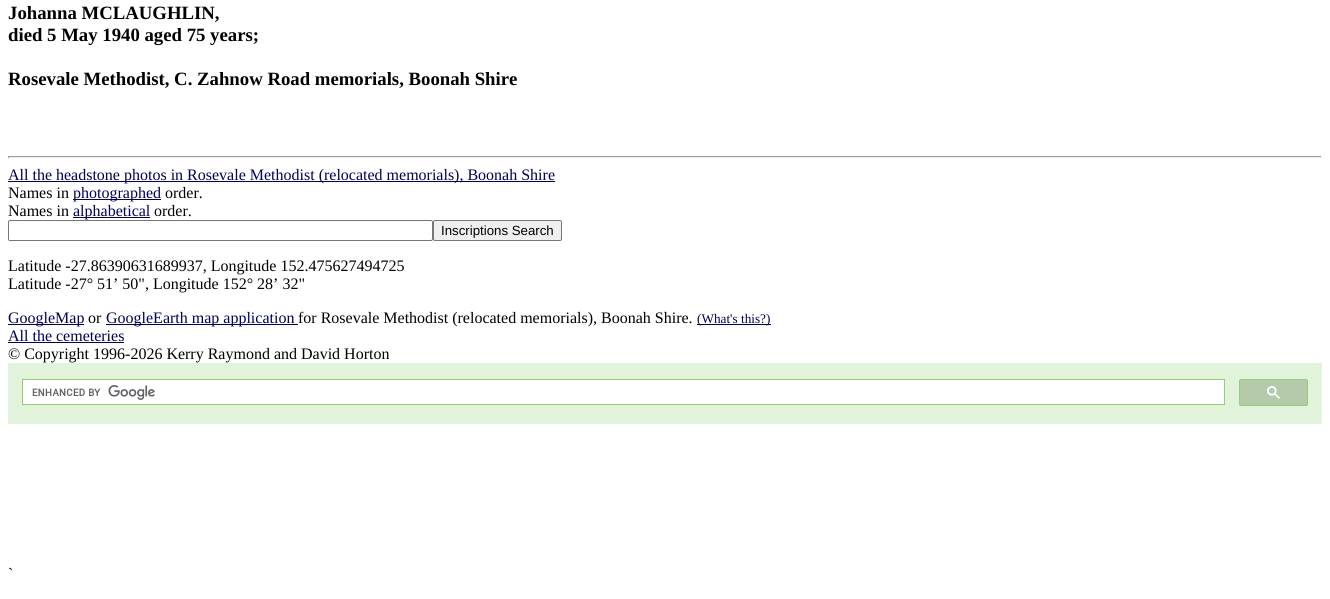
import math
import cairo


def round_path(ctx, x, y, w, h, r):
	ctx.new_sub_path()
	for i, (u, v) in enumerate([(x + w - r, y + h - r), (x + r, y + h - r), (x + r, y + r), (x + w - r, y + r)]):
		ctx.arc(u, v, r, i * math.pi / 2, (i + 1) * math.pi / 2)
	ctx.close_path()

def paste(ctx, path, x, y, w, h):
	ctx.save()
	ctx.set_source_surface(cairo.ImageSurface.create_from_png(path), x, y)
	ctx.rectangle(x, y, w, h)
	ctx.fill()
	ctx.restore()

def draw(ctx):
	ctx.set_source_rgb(1, 1, 1)
	ctx.paint()
	ctx.select_font_face('Liberation Serif', cairo.FONT_SLANT_NORMAL, cairo.FONT_WEIGHT_BOLD)
	ctx.set_font_size(18.75)
	ctx.set_source_rgb(0, 0, 0)
	for x, y, s in [
		(8, 19, 'Johanna MCLAUGHLIN,'),
		(8, 41, 'died 5 May 1940 aged 75 years;'),
		(8, 85, 'Rosevale Methodist, C. Zahnow Road memorials, Boonah Shire'),
	]:
		ctx.move_to(x, y)
		ctx.show_text(s)
	ctx.set_source_rgb(0.624, 0.624, 0.624)
	ctx.rectangle(8, 156, 1314, 1)
	ctx.fill()
	ctx.set_source_rgb(0.933, 0.933, 0.933)
	ctx.rectangle(1321, 156, 1, 2)
	ctx.rectangle(8, 157, 1314, 1)
	ctx.fill()
	ctx.set_source_rgb(0.624, 0.624, 0.624)
	ctx.rectangle(8, 156, 1, 2)
	ctx.fill()
	ctx.set_source_rgb(0, 0, 0.333)
	ctx.rectangle(8, 181, 547, 1)
	ctx.fill()
	ctx.select_font_face('Liberation Serif')
	ctx.set_font_size(16)
	ctx.move_to(8, 180)
	ctx.show_text('All the headstone photos in Rosevale Methodist (relocated memorials), Boonah Shire')
	ctx.set_source_rgb(0, 0, 0)
	ctx.move_to(8, 198)
	ctx.show_text('Names in')
	ctx.set_source_rgb(0, 0, 0.333)
	ctx.rectangle(73, 199, 88, 1)
	ctx.fill()
	ctx.move_to(73, 198)
	ctx.show_text('photographed')
	ctx.set_source_rgb(0, 0, 0)
	ctx.move_to(165, 198)
	ctx.show_text('order.')
	ctx.move_to(8, 216)
	ctx.show_text('Names in')
	ctx.set_source_rgb(0, 0, 0.333)
	ctx.rectangle(73, 217, 77, 1)
	ctx.fill()
	ctx.move_to(73, 216)
	ctx.show_text('alphabetical')
	ctx.set_source_rgb(0, 0, 0)
	ctx.move_to(154, 216)
	ctx.show_text('order.')
	round_path(ctx, 8.5, 220.5, 424, 20, 1.5)
	ctx.set_source_rgb(0.463, 0.463, 0.463)
	ctx.set_line_width(1)
	ctx.stroke()
	ctx.set_source_rgb(0.937, 0.937, 0.937)
	round_path(ctx, 433.5, 220.5, 128, 20, 1.5)
	ctx.fill_preserve()
	ctx.set_source_rgb(0.463, 0.463, 0.463)
	ctx.stroke()
	ctx.select_font_face('Liberation Sans')
	ctx.set_font_size(13.25)
	ctx.set_source_rgb(0, 0, 0)
	ctx.move_to(441, 235)
	ctx.show_text('Inscriptions Search')
	ctx.select_font_face('Liberation Serif')
	ctx.set_font_size(16)
	ctx.move_to(8, 271)
	ctx.show_text('Latitude -27.86390631689937, Longitude 152.475627494725')
	ctx.move_to(8, 289)
	ctx.show_text('Latitude -27° 51’ 50", Longitude 152° 28’ 32"')
	ctx.set_source_rgb(0, 0, 0.333)
	ctx.rectangle(8, 324, 76, 1)
	ctx.fill()
	ctx.move_to(8, 323)
	ctx.show_text('GoogleMap')
	ctx.set_source_rgb(0, 0, 0)
	ctx.move_to(88, 323)
	ctx.show_text('or')
	ctx.set_source_rgb(0, 0, 0.333)
	ctx.rectangle(106, 324, 192, 1)
	ctx.fill()
	ctx.move_to(106, 323)
	ctx.show_text('GoogleEarth map application')
	ctx.set_source_rgb(0, 0, 0)
	ctx.move_to(298, 323)
	ctx.show_text('for Rosevale Methodist (relocated memorials), Boonah Shire.')
	ctx.set_source_rgb(0, 0, 0.333)
	ctx.rectangle(697, 324, 74, 1)
	ctx.fill()
	ctx.set_font_size(13.25)
	ctx.move_to(697, 323)
	ctx.show_text('(What\'s this?)')
	ctx.set_font_size(16)
	ctx.move_to(8, 341)
	ctx.show_text('All the cemeteries')
	ctx.rectangle(8, 342, 116, 1)
	ctx.fill()
	ctx.set_source_rgb(0, 0, 0)
	ctx.move_to(8, 359)
	ctx.show_text('© Copyright 1996-2026 Kerry Raymond and David Horton')
	ctx.set_source_rgb(0.882, 0.953, 0.855)
	ctx.rectangle(8, 363, 1314, 61)
	ctx.fill()
	ctx.set_source_rgb(1, 1, 1)
	ctx.rectangle(22.5, 379.5, 1202, 25)
	ctx.fill_preserve()
	ctx.set_source_rgb(0.58, 0.8, 0.478)
	ctx.stroke()
	paste(ctx, 'media/1.png', 32, 385, 123, 15)
	ctx.set_source_rgb(0.71, 0.788, 0.671)
	round_path(ctx, 1239.5, 379.5, 68, 26, 1.5)
	ctx.fill_preserve()
	ctx.set_source_rgb(0.58, 0.8, 0.478)
	ctx.stroke()
	paste(ctx, 'media/2.png', 1267, 386, 13, 13)
	ctx.set_source_rgb(0, 0, 0)
	ctx.move_to(8, 579)
	ctx.show_text('`')


surface = cairo.ImageSurface(cairo.FORMAT_RGB24, 1330, 599)
ctx = cairo.Context(surface)
options = cairo.FontOptions()
options.set_hint_metrics(cairo.HINT_METRICS_OFF)
options.set_hint_style(cairo.HINT_STYLE_NONE)
ctx.set_font_options(options)
ctx.set_miter_limit(4)
draw(ctx)
surface.write_to_png('image.png')
